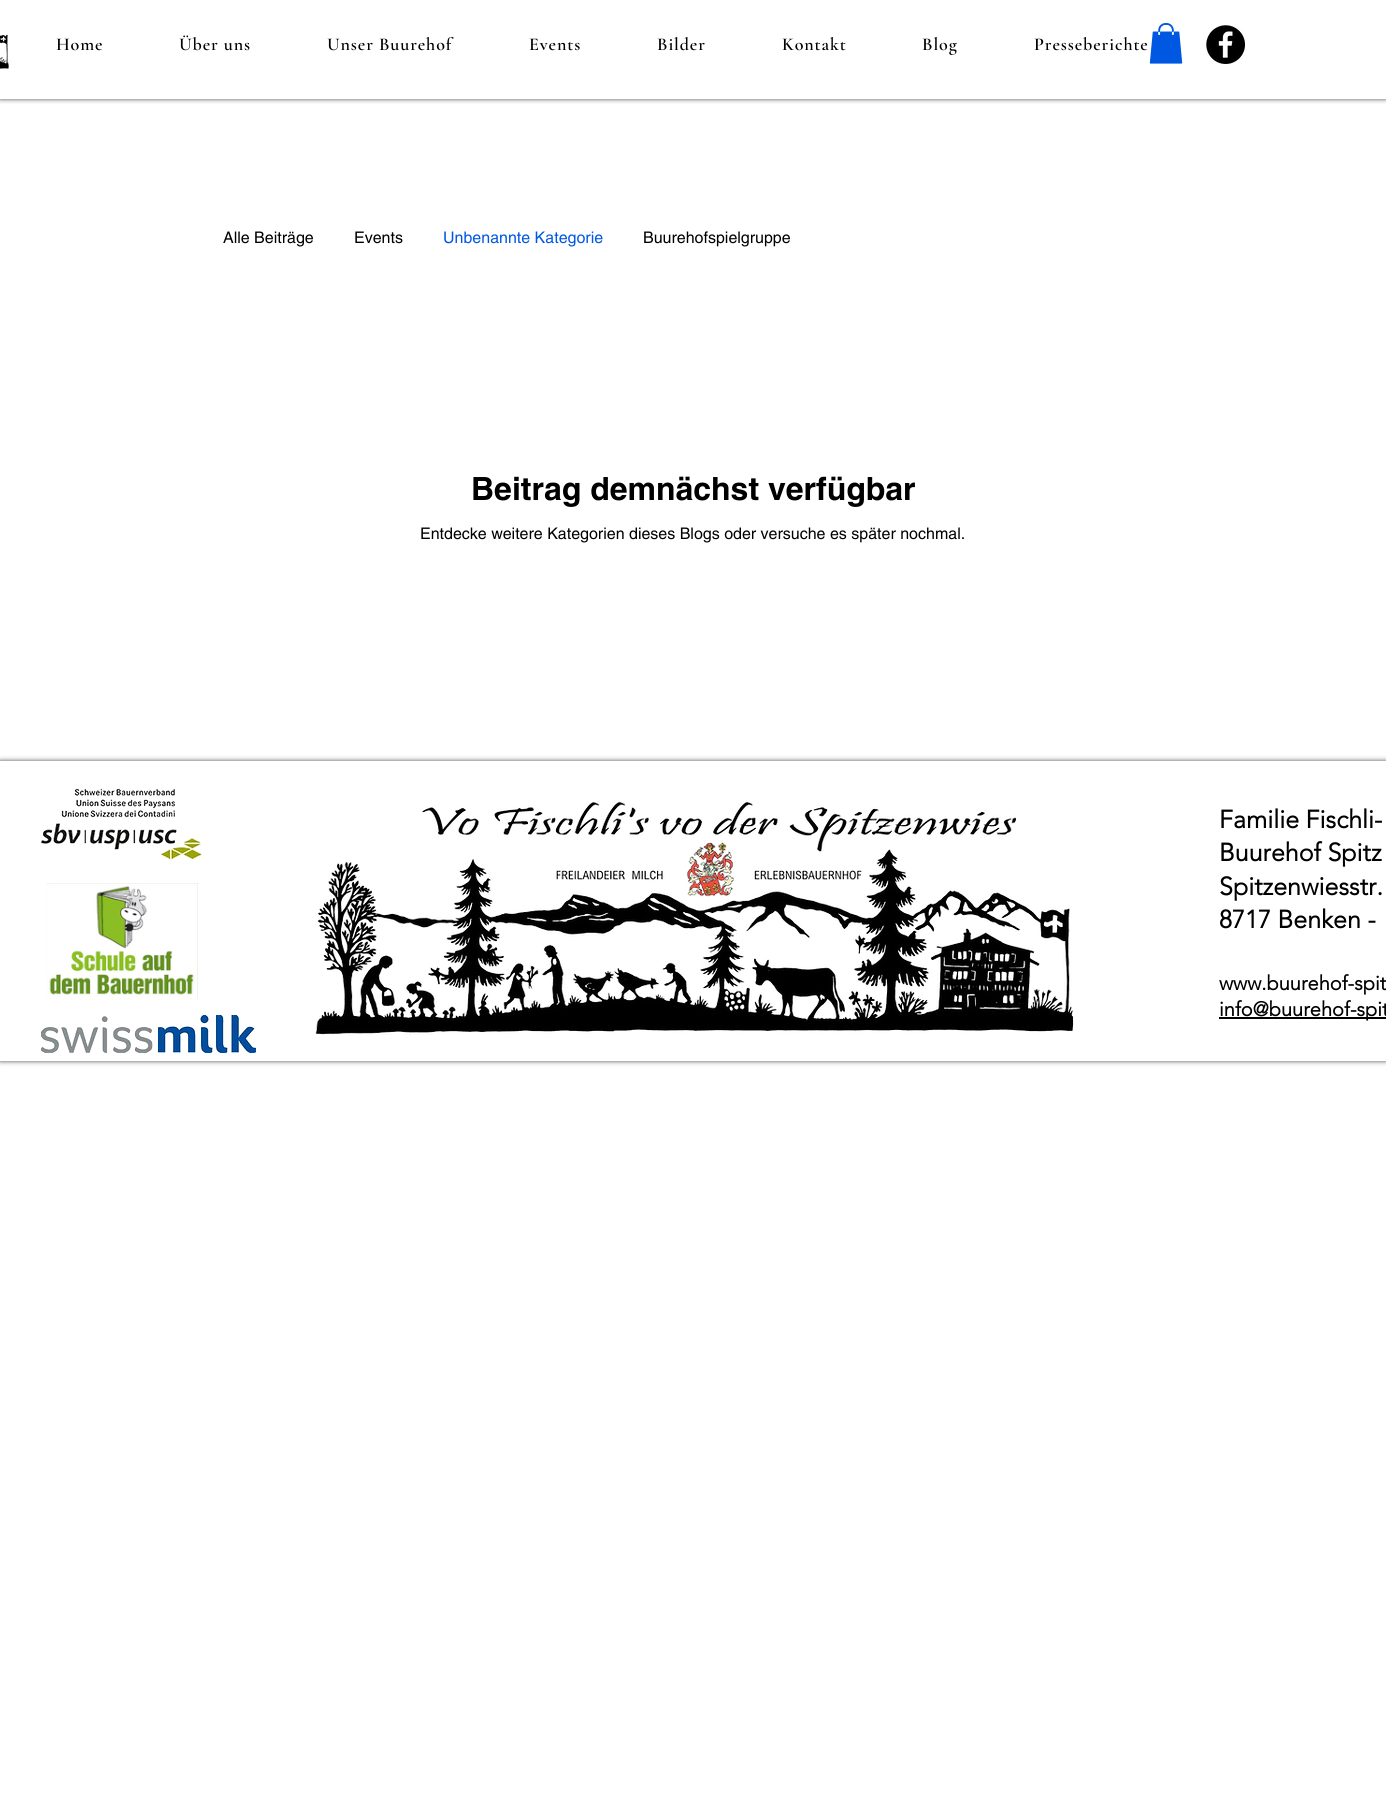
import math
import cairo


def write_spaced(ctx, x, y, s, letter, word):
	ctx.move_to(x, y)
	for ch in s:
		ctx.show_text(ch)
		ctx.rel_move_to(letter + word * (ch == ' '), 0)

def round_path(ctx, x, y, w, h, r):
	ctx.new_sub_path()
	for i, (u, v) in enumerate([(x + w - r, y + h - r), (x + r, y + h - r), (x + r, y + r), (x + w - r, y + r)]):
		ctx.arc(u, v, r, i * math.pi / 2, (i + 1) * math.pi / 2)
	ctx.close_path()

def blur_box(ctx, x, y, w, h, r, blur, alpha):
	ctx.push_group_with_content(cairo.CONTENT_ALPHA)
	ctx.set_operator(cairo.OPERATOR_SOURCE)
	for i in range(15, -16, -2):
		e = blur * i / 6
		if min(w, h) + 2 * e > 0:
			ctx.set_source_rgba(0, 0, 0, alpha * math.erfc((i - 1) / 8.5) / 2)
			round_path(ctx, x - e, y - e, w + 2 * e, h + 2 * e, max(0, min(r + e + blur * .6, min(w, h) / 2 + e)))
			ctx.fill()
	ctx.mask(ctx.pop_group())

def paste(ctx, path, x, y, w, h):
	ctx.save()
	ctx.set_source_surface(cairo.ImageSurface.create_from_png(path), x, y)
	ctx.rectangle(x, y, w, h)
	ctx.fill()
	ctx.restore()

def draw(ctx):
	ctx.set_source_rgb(1, 1, 1)
	ctx.paint()
	ctx.save()
	ctx.rectangle(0, 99, 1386, 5)
	ctx.clip()
	ctx.set_source_rgb(0, 0, 0)
	blur_box(ctx, 0, 0, 1386, 99, 0, 2.5, 0.7)
	ctx.restore()
	paste(ctx, 'media/1.png', 0, 34, 9, 35)
	ctx.select_font_face('Cormorant Garamond SemiBold')
	ctx.set_font_size(18)
	ctx.set_source_rgb(0, 0, 0)
	for x, y, s in [
		(56, 50, 'Home'),
		(179, 50, 'Über uns'),
		(327, 50, 'Unser Buurehof'),
		(529, 50, 'Events'),
		(657, 50, 'Bilder'),
		(782, 50, 'Kontakt'),
		(922, 50, 'Blog'),
		(1034, 50, 'Presseberichte'),
	]:
		write_spaced(ctx, x, y, s, 0.9, 0)
	paste(ctx, 'media/2.png', 1149, 23, 34, 41)
	paste(ctx, 'media/3.png', 1206, 25, 39, 39)
	ctx.select_font_face('helvetica')
	ctx.set_font_size(16)
	ctx.move_to(223, 243)
	ctx.show_text('Alle Beiträge')
	ctx.move_to(354, 243)
	ctx.show_text('Events')
	ctx.set_source_rgb(0, 0.341, 0.882)
	ctx.move_to(443, 243)
	ctx.show_text('Unbenannte Kategorie')
	ctx.set_source_rgb(0, 0, 0)
	ctx.move_to(643, 243)
	ctx.show_text('Buurehofspielgruppe')
	ctx.select_font_face('helvetica', cairo.FONT_SLANT_NORMAL, cairo.FONT_WEIGHT_BOLD)
	ctx.set_font_size(32)
	ctx.move_to(471, 500)
	ctx.show_text('Beitrag demnächst verfügbar')
	ctx.select_font_face('helvetica')
	ctx.set_font_size(16)
	ctx.move_to(420, 539)
	ctx.show_text('Entdecke weitere Kategorien dieses Blogs oder versuche es später nochmal.')
	ctx.save()
	ctx.set_fill_rule(cairo.FILL_RULE_EVEN_ODD)
	ctx.new_path()
	ctx.move_to(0, 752)
	ctx.line_to(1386, 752)
	ctx.line_to(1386, 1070)
	ctx.line_to(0, 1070)
	ctx.close_path()
	ctx.move_to(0, 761)
	ctx.line_to(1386, 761)
	ctx.line_to(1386, 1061)
	ctx.line_to(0, 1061)
	ctx.close_path()
	ctx.clip()
	ctx.set_source_rgb(0, 0, 0)
	blur_box(ctx, 0, 761, 1386, 300, 0, 2.5, 0.7)
	ctx.restore()
	paste(ctx, 'media/4.png', 41, 788, 161, 72)
	paste(ctx, 'media/5.png', 315, 801, 759, 234)
	ctx.select_font_face('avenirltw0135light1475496', cairo.FONT_SLANT_NORMAL, cairo.FONT_WEIGHT_BOLD)
	ctx.set_font_size(25)
	for x, y, s in [
		(1219, 828, 'Familie Fischli-'),
		(1219, 861, 'Buurehof Spitz'),
		(1219, 895, 'Spitzenwiesstr.'),
		(1219, 928, '8717 Benken -'),
	]:
		ctx.move_to(x, y)
		ctx.show_text(s)
	ctx.set_font_size(20)
	ctx.move_to(1219, 990)
	ctx.show_text('www.buurehof-spit')
	ctx.rectangle(1219, 1017, 167, 2)
	ctx.fill()
	ctx.move_to(1219, 1016)
	ctx.show_text('info@buurehof-spit')
	paste(ctx, 'media/6.png', 46, 883, 152, 117)
	paste(ctx, 'media/7.png', 41, 1015, 215, 38)


surface = cairo.ImageSurface(cairo.FORMAT_RGB24, 1386, 1805)
ctx = cairo.Context(surface)
options = cairo.FontOptions()
options.set_hint_metrics(cairo.HINT_METRICS_OFF)
options.set_hint_style(cairo.HINT_STYLE_NONE)
ctx.set_font_options(options)
ctx.set_miter_limit(4)
draw(ctx)
surface.write_to_png('image.png')
